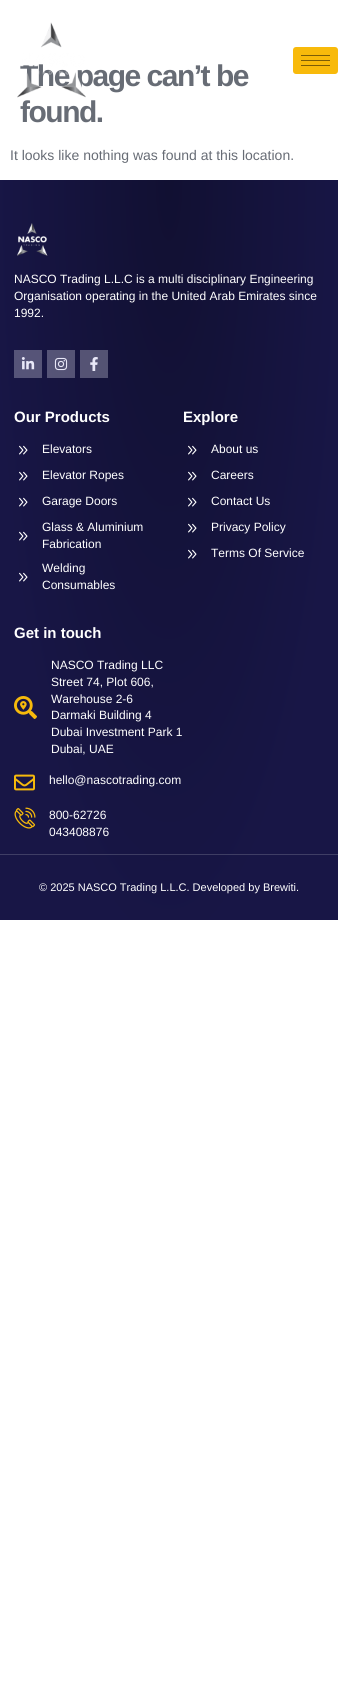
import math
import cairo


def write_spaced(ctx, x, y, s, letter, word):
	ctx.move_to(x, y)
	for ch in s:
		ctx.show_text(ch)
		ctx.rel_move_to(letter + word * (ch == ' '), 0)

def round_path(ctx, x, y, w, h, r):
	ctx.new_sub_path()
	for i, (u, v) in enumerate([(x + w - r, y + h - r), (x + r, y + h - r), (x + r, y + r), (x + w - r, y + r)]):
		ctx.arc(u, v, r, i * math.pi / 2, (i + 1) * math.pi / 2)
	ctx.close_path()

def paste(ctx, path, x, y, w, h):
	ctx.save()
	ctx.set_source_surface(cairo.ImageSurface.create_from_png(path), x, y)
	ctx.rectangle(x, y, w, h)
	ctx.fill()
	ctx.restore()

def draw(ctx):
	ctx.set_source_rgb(1, 1, 1)
	ctx.paint()
	ctx.select_font_face('Liberation Sans', cairo.FONT_SLANT_NORMAL, cairo.FONT_WEIGHT_BOLD)
	ctx.set_font_size(30)
	ctx.set_source_rgb(0.404, 0.424, 0.459)
	write_spaced(ctx, 20, 86, 'The page can’t be', -1.5, 0)
	paste(ctx, 'media/1.png', 17, 22, 69, 76)
	ctx.set_source_rgb(0.969, 0.729, 0.043)
	round_path(ctx, 293, 47, 45, 27, 3)
	ctx.fill()
	ctx.set_source_rgb(0.486, 0.365, 0.024)
	ctx.rectangle(301, 55, 29, 1)
	ctx.rectangle(301, 60, 29, 1)
	ctx.rectangle(301, 65, 29, 1)
	ctx.fill()
	ctx.set_source_rgb(0.404, 0.424, 0.459)
	write_spaced(ctx, 20, 122, 'found.', -1.5, 0)
	ctx.select_font_face('Liberation Sans')
	ctx.set_font_size(14)
	ctx.move_to(10, 160)
	ctx.show_text('It looks like nothing was found at this location.')
	gradient = cairo.RadialGradient(0, 0, 0, 0, 0, 1)
	gradient.set_matrix(cairo.Matrix(1 / 239, 0, 0, 1 / 1047, -1 * 169 / 239, -1 * 180 / 1047))
	gradient.add_color_stop_rgba(0, 0.067, 0.063, 0.196, 1)
	gradient.add_color_stop_rgba(0.75, 0.094, 0.086, 0.275, 1)
	ctx.set_source(gradient)
	ctx.rectangle(0, 180, 338, 740)
	ctx.fill()
	gradient = cairo.RadialGradient(0, 0, 0, 0, 0, 1)
	gradient.set_matrix(cairo.Matrix(1 / 239, 0, 0, 1 / 1047, -1 * 169 / 239, -1 * 180 / 1047))
	gradient.add_color_stop_rgba(0, 0.224, 0.224, 0.333, 1)
	gradient.add_color_stop_rgba(0.75, 0.247, 0.243, 0.396, 1)
	ctx.set_source(gradient)
	ctx.rectangle(0, 854, 338, 1)
	ctx.fill()
	gradient = cairo.RadialGradient(0, 0, 0, 0, 0, 1)
	gradient.set_matrix(cairo.Matrix(1 / 239, 0, 0, 1 / 1047, -1 * 169 / 239, -1 * 180 / 1047))
	gradient.add_color_stop_rgba(0, 0.322, 0.318, 0.427, 1)
	gradient.add_color_stop_rgba(0.75, 0.341, 0.333, 0.482, 1)
	ctx.set_source(gradient)
	ctx.rectangle(80, 350, 28, 28)
	ctx.fill()
	ctx.rectangle(47, 350, 28, 28)
	ctx.fill()
	ctx.rectangle(14, 350, 28, 28)
	ctx.fill()
	paste(ctx, 'media/2.png', 17, 223, 31, 33)
	ctx.set_font_size(12)
	ctx.set_source_rgb(1, 1, 1)
	for x, y, s in [
		(14, 283, 'NASCO Trading L.L.C is a multi disciplinary Engineering'),
		(14, 300, 'Organisation operating in the United Arab Emirates since'),
		(14, 317, '1992.'),
	]:
		ctx.move_to(x, y)
		ctx.show_text(s)
	paste(ctx, 'media/3.png', 21, 357, 14, 13)
	paste(ctx, 'media/4.png', 54, 357, 14, 14)
	paste(ctx, 'media/5.png', 90, 357, 8, 14)
	ctx.select_font_face('Liberation Sans', cairo.FONT_SLANT_NORMAL, cairo.FONT_WEIGHT_BOLD)
	ctx.set_font_size(15)
	ctx.move_to(14, 422)
	ctx.show_text('Our Products')
	paste(ctx, 'media/6.png', 19, 445, 9, 10)
	ctx.select_font_face('Liberation Sans')
	ctx.set_font_size(12)
	ctx.move_to(42, 453)
	ctx.show_text('Elevators')
	paste(ctx, 'media/7.png', 19, 471, 9, 10)
	ctx.move_to(42, 479)
	ctx.show_text('Elevator Ropes')
	paste(ctx, 'media/8.png', 19, 497, 9, 10)
	ctx.move_to(42, 505)
	ctx.show_text('Garage Doors')
	paste(ctx, 'media/9.png', 19, 531, 9, 10)
	ctx.move_to(42, 531)
	ctx.show_text('Glass & Aluminium')
	ctx.move_to(42, 548)
	ctx.show_text('Fabrication')
	paste(ctx, 'media/10.png', 19, 572, 9, 10)
	ctx.move_to(42, 572)
	ctx.show_text('Welding')
	ctx.move_to(42, 589)
	ctx.show_text('Consumables')
	ctx.select_font_face('Liberation Sans', cairo.FONT_SLANT_NORMAL, cairo.FONT_WEIGHT_BOLD)
	ctx.set_font_size(15)
	ctx.move_to(183, 422)
	ctx.show_text('Explore')
	paste(ctx, 'media/11.png', 188, 445, 9, 10)
	ctx.select_font_face('Liberation Sans')
	ctx.set_font_size(12)
	ctx.move_to(211, 453)
	ctx.show_text('About us')
	paste(ctx, 'media/12.png', 188, 471, 9, 10)
	ctx.move_to(211, 479)
	ctx.show_text('Careers')
	paste(ctx, 'media/13.png', 188, 497, 9, 10)
	ctx.move_to(211, 505)
	ctx.show_text('Contact Us')
	paste(ctx, 'media/14.png', 188, 523, 9, 10)
	ctx.move_to(211, 531)
	ctx.show_text('Privacy Policy')
	paste(ctx, 'media/15.png', 188, 549, 9, 10)
	ctx.move_to(211, 557)
	ctx.show_text('Terms Of Service')
	ctx.select_font_face('Liberation Sans', cairo.FONT_SLANT_NORMAL, cairo.FONT_WEIGHT_BOLD)
	ctx.set_font_size(15)
	ctx.move_to(14, 638)
	ctx.show_text('Get in touch')
	paste(ctx, 'media/16.png', 14, 696, 23, 23)
	ctx.select_font_face('Liberation Sans')
	ctx.set_font_size(12)
	for x, y, s in [
		(51, 669, 'NASCO Trading LLC'),
		(51, 686, 'Street 74, Plot 606,'),
		(51, 703, 'Warehouse 2-6'),
		(51, 719, 'Darmaki Building 4'),
		(51, 736, 'Dubai Investment Park 1'),
		(51, 753, 'Dubai, UAE'),
	]:
		ctx.move_to(x, y)
		ctx.show_text(s)
	paste(ctx, 'media/17.png', 14, 774, 21, 17)
	ctx.move_to(49, 784)
	ctx.show_text('hello@nascotrading.com')
	paste(ctx, 'media/18.png', 14, 807, 22, 22)
	ctx.move_to(49, 819)
	ctx.show_text('800-62726')
	ctx.move_to(49, 836)
	ctx.show_text('043408876')
	ctx.set_font_size(11)
	ctx.move_to(39, 891)
	ctx.show_text('© 2025 NASCO Trading L.L.C. Developed by Brewiti.')


surface = cairo.ImageSurface(cairo.FORMAT_RGB24, 338, 1708)
ctx = cairo.Context(surface)
options = cairo.FontOptions()
options.set_hint_metrics(cairo.HINT_METRICS_OFF)
options.set_hint_style(cairo.HINT_STYLE_NONE)
ctx.set_font_options(options)
ctx.set_miter_limit(4)
draw(ctx)
surface.write_to_png('image.png')
